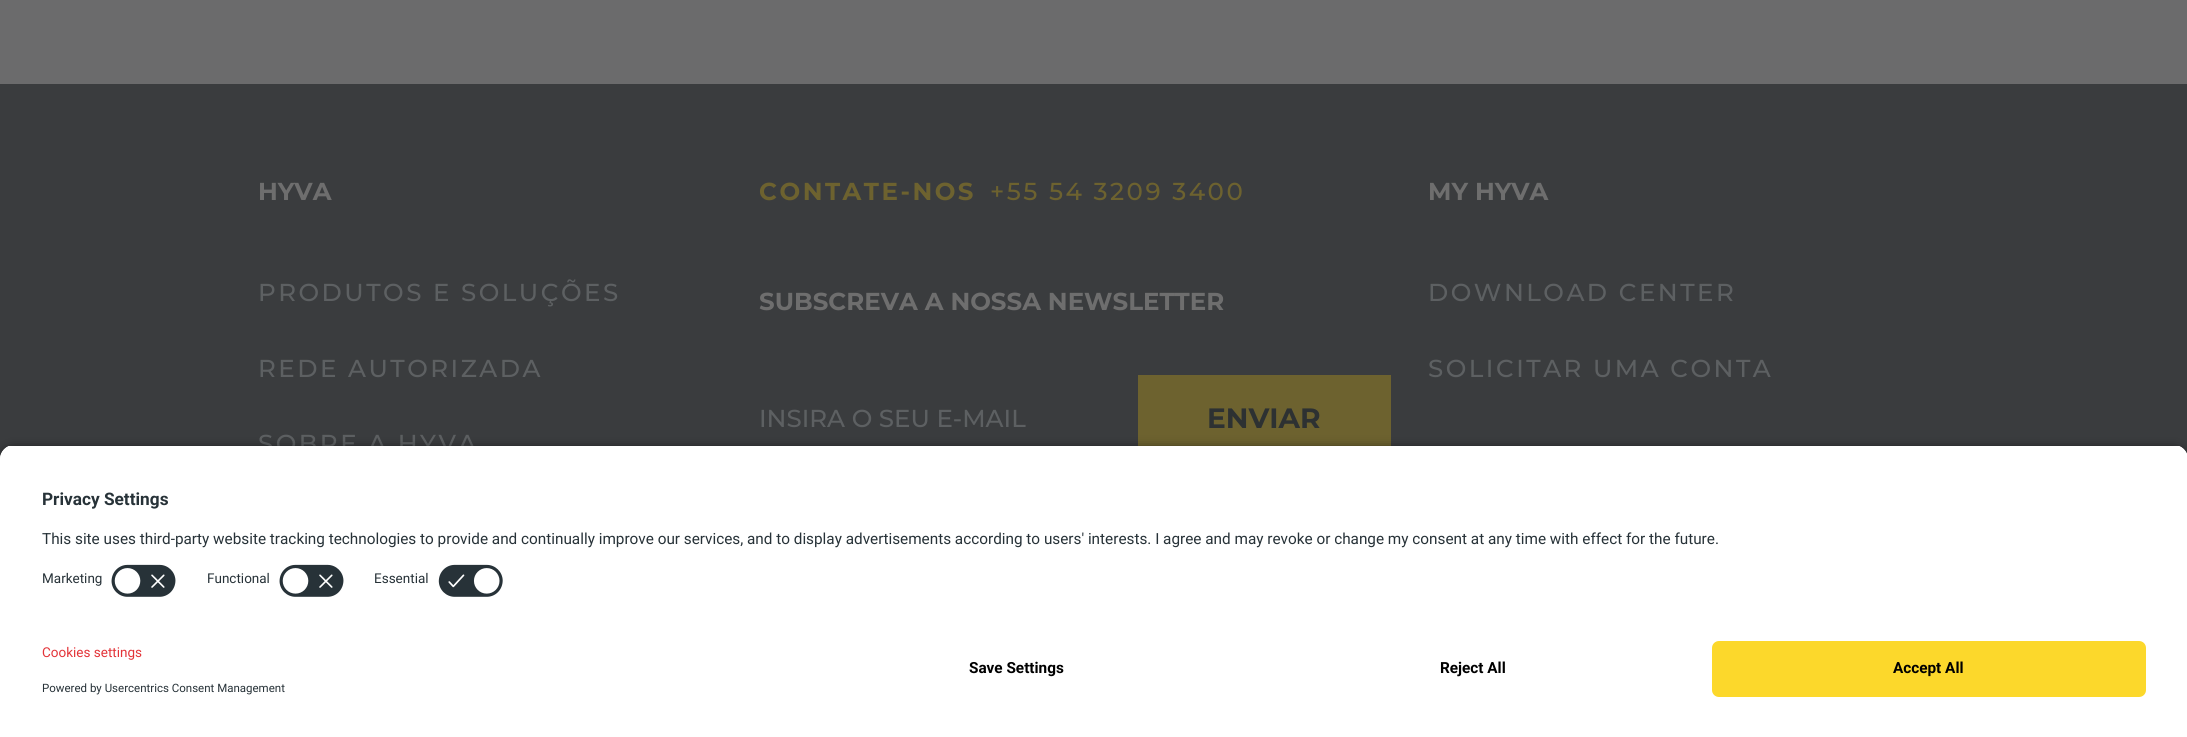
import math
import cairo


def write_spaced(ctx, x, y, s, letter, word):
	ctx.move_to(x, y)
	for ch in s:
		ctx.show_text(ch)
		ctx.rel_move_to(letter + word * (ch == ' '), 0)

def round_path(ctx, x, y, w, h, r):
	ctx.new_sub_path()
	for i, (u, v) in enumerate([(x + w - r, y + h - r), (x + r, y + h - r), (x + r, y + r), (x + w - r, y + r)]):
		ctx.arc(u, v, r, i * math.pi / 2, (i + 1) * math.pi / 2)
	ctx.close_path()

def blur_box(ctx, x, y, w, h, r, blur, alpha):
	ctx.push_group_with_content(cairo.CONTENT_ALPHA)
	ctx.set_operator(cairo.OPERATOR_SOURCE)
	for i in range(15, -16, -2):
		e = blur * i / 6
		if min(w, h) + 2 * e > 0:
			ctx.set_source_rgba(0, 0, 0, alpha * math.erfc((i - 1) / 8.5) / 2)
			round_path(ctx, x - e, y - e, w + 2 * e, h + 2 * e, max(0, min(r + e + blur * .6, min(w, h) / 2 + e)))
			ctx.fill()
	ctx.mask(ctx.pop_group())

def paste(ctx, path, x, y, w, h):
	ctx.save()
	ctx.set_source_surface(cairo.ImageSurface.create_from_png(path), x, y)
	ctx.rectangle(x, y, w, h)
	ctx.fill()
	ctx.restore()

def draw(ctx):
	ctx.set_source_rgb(0.42, 0.42, 0.424)
	ctx.paint()
	ctx.set_source_rgb(0.227, 0.235, 0.243)
	ctx.rectangle(0, 84, 2187, 375)
	ctx.fill()
	ctx.select_font_face('Montserrat', cairo.FONT_SLANT_NORMAL, cairo.FONT_WEIGHT_BOLD)
	ctx.set_font_size(24.5)
	ctx.set_source_rgb(0.431, 0.431, 0.431)
	ctx.move_to(258, 200)
	ctx.show_text('HYVA')
	ctx.select_font_face('Montserrat Medium')
	ctx.set_source_rgb(0.365, 0.376, 0.384)
	for x, y, s in [
		(258, 301, 'PRODUTOS E SOLUÇÕES'),
		(258, 377, 'REDE AUTORIZADA'),
		(258, 452, 'SOBRE A HYVA'),
	]:
		write_spaced(ctx, x, y, s, 2.5, 0)
	ctx.select_font_face('Montserrat', cairo.FONT_SLANT_NORMAL, cairo.FONT_WEIGHT_BOLD)
	ctx.set_source_rgb(0.427, 0.384, 0.184)
	write_spaced(ctx, 759, 200, 'CONTATE-NOS', 2.5, 0)
	ctx.select_font_face('Montserrat Medium')
	write_spaced(ctx, 990, 200, '+55 54 3209 3400', 2.5, 0)
	ctx.select_font_face('Montserrat', cairo.FONT_SLANT_NORMAL, cairo.FONT_WEIGHT_BOLD)
	ctx.set_source_rgb(0.431, 0.431, 0.431)
	ctx.move_to(759, 310)
	ctx.show_text('SUBSCREVA A NOSSA NEWSLETTER')
	ctx.select_font_face('Montserrat Medium')
	ctx.set_source_rgb(0.365, 0.376, 0.384)
	ctx.move_to(759, 427)
	ctx.show_text('INSIRA O SEU E-MAIL')
	ctx.set_source_rgb(0.427, 0.384, 0.184)
	ctx.rectangle(1138, 375, 253, 71)
	ctx.fill()
	ctx.select_font_face('Montserrat', cairo.FONT_SLANT_NORMAL, cairo.FONT_WEIGHT_BOLD)
	ctx.set_font_size(28)
	ctx.set_source_rgb(0.176, 0.192, 0.196)
	ctx.move_to(1207, 428)
	ctx.show_text('ENVIAR')
	ctx.set_font_size(24.5)
	ctx.set_source_rgb(0.431, 0.431, 0.431)
	ctx.move_to(1428, 200)
	ctx.show_text('MY HYVA')
	ctx.select_font_face('Montserrat Medium')
	ctx.set_source_rgb(0.365, 0.376, 0.384)
	write_spaced(ctx, 1428, 301, 'DOWNLOAD CENTER', 2.5, 0)
	write_spaced(ctx, 1428, 377, 'SOLICITAR UMA CONTA', 2.5, 0)
	ctx.set_source_rgb(0, 0, 0)
	blur_box(ctx, 0, 450, 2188, 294, 14, 6, 0.8)
	ctx.save()
	ctx.new_path()
	ctx.move_to(14, 445)
	ctx.line_to(2174, 445)
	ctx.curve_to(2181.5, 445, 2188, 451.5, 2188, 459)
	ctx.line_to(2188, 627)
	ctx.line_to(0, 627)
	ctx.line_to(0, 459)
	ctx.curve_to(0, 451.5, 6.5, 445, 14, 445)
	ctx.close_path()
	ctx.clip()
	ctx.set_source_rgb(1, 1, 1)
	ctx.rectangle(0, 446, 2187, 181)
	ctx.fill()
	ctx.rectangle(0, 446, 2187, 111)
	ctx.fill()
	ctx.restore()
	ctx.select_font_face('Roboto', cairo.FONT_SLANT_NORMAL, cairo.FONT_WEIGHT_BOLD)
	ctx.set_font_size(17.25)
	ctx.set_source_rgb(0.153, 0.196, 0.22)
	ctx.move_to(42, 505)
	ctx.show_text('Privacy Settings')
	ctx.select_font_face('Roboto')
	ctx.set_font_size(15.31)
	ctx.move_to(42, 544)
	ctx.show_text('This site uses third-party website tracking technologies to provide and continually improve our services, and to display advertisements according to users\' interests. I agree and may revoke or change my consent at any time with effect for the future.')
	ctx.set_font_size(13.5)
	ctx.move_to(42, 583)
	ctx.show_text('Marketing')
	paste(ctx, 'media/1.png', 111, 564, 65, 33)
	ctx.move_to(207, 583)
	ctx.show_text('Functional')
	paste(ctx, 'media/1.png', 279, 564, 65, 33)
	ctx.move_to(374, 583)
	ctx.show_text('Essential')
	paste(ctx, 'media/2.png', 438, 564, 65, 33)
	ctx.set_source_rgb(1, 1, 1)
	ctx.rectangle(0, 627, 2187, 110)
	ctx.fill()
	ctx.set_source_rgb(0.89, 0.204, 0.224)
	ctx.move_to(42, 657)
	ctx.show_text('Cookies settings')
	ctx.set_font_size(11.5)
	ctx.set_source_rgb(0.153, 0.196, 0.22)
	ctx.move_to(42, 692)
	ctx.show_text('Powered by Usercentrics Consent Management')
	ctx.select_font_face('Roboto', cairo.FONT_SLANT_NORMAL, cairo.FONT_WEIGHT_BOLD)
	ctx.set_font_size(15.31)
	ctx.set_source_rgb(0, 0, 0)
	ctx.move_to(969, 673)
	ctx.show_text('Save Settings')
	ctx.move_to(1440, 673)
	ctx.show_text('Reject All')
	ctx.set_source_rgb(0.988, 0.847, 0.169)
	round_path(ctx, 1712, 641, 434, 56, 7)
	ctx.fill()
	ctx.set_source_rgb(0, 0, 0)
	ctx.move_to(1893, 673)
	ctx.show_text('Accept All')


surface = cairo.ImageSurface(cairo.FORMAT_RGB24, 2187, 737)
ctx = cairo.Context(surface)
options = cairo.FontOptions()
options.set_hint_metrics(cairo.HINT_METRICS_OFF)
options.set_hint_style(cairo.HINT_STYLE_NONE)
ctx.set_font_options(options)
ctx.set_miter_limit(4)
draw(ctx)
surface.write_to_png('image.png')
